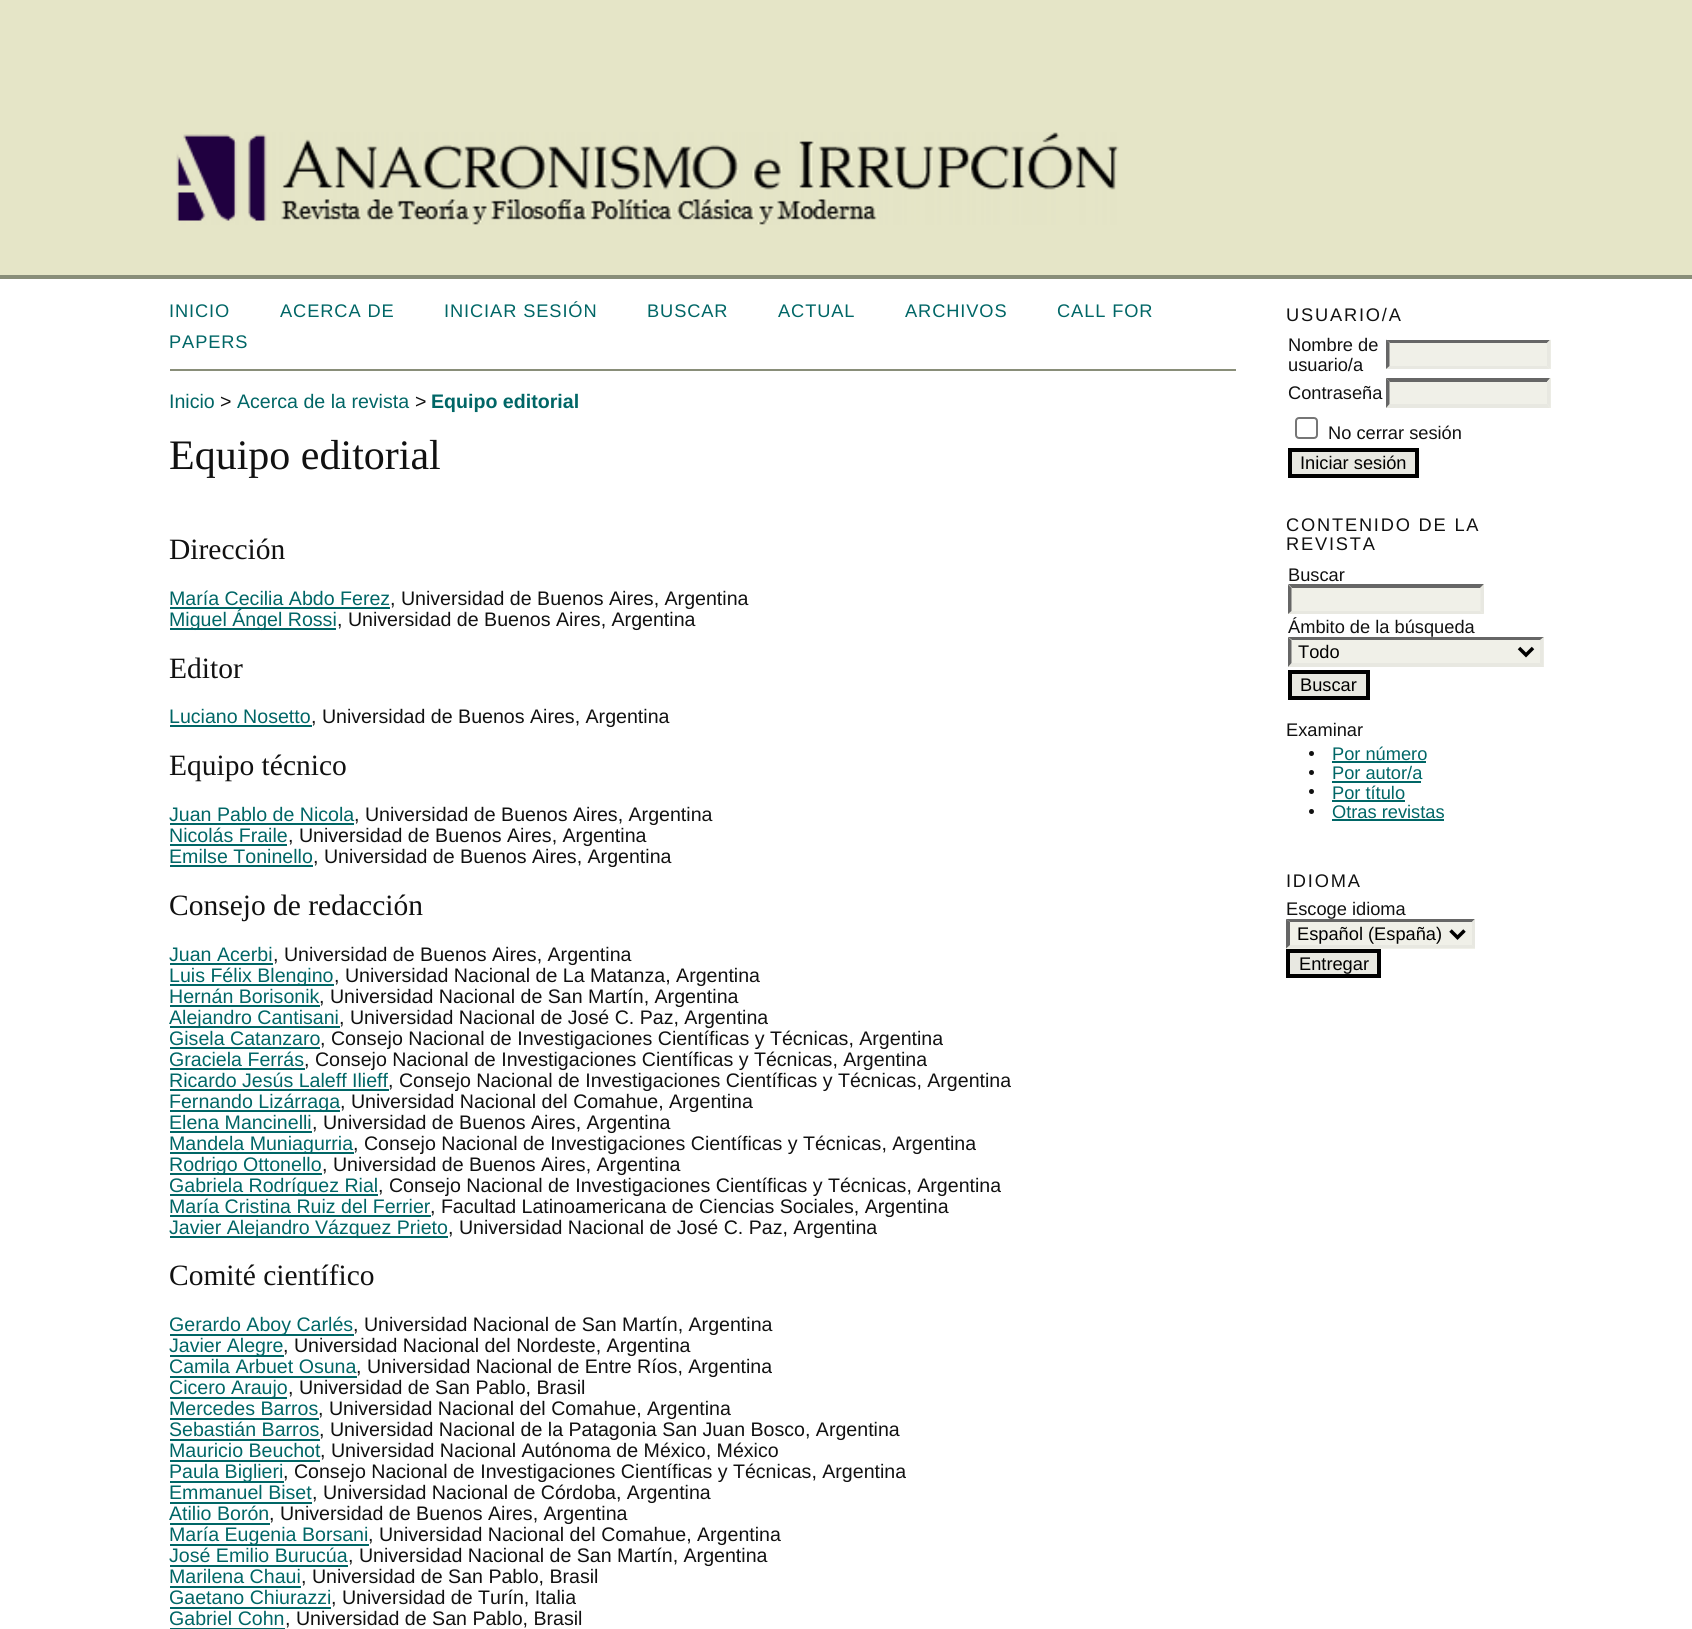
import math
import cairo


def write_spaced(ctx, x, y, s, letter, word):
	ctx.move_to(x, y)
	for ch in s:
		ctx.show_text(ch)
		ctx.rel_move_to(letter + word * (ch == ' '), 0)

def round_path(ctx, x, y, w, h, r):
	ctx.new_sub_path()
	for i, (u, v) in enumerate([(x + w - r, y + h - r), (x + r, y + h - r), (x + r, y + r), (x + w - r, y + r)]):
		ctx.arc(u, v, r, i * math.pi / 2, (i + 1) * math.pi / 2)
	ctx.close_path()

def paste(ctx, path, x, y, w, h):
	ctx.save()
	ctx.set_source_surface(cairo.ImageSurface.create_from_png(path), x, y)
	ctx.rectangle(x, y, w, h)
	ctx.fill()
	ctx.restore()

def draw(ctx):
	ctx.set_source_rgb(1, 1, 1)
	ctx.paint()
	ctx.set_source_rgb(0.898, 0.898, 0.78)
	ctx.rectangle(0, 0, 1692, 275)
	ctx.fill()
	ctx.set_source_rgb(0.537, 0.557, 0.475)
	ctx.rectangle(0, 275, 1692, 4)
	ctx.fill()
	paste(ctx, 'media/1.png', 176, 132, 943, 93)
	ctx.rectangle(170, 369, 1066, 2)
	ctx.fill()
	ctx.select_font_face('Liberation Sans')
	ctx.set_font_size(18.25)
	ctx.set_source_rgb(0, 0.4, 0.4)
	for x, y, s in [
		(169, 317, 'INICIO'),
		(280, 317, 'ACERCA DE'),
		(444, 317, 'INICIAR SESIÓN'),
		(647, 317, 'BUSCAR'),
		(778, 317, 'ACTUAL'),
		(905, 317, 'ARCHIVOS'),
		(1057, 317, 'CALL FOR'),
		(169, 348, 'PAPERS'),
	]:
		write_spaced(ctx, x, y, s, 0.9, 0)
	ctx.set_font_size(19.6)
	ctx.move_to(169, 408)
	ctx.show_text('Inicio')
	ctx.set_source_rgb(0.067, 0.067, 0.067)
	ctx.move_to(220, 408)
	ctx.show_text('>')
	ctx.set_source_rgb(0, 0.4, 0.4)
	ctx.move_to(237, 408)
	ctx.show_text('Acerca de la revista')
	ctx.set_source_rgb(0.067, 0.067, 0.067)
	ctx.move_to(415, 408)
	ctx.show_text('>')
	ctx.select_font_face('Liberation Sans', cairo.FONT_SLANT_NORMAL, cairo.FONT_WEIGHT_BOLD)
	ctx.set_source_rgb(0, 0.4, 0.4)
	ctx.move_to(431, 408)
	ctx.show_text('Equipo editorial')
	ctx.select_font_face('Liberation Serif')
	ctx.set_font_size(42)
	ctx.set_source_rgb(0.067, 0.067, 0.067)
	ctx.move_to(169, 469)
	ctx.show_text('Equipo editorial')
	ctx.set_font_size(29.5)
	ctx.move_to(169, 559)
	ctx.show_text('Dirección')
	ctx.select_font_face('Liberation Sans')
	ctx.set_font_size(19.6)
	ctx.set_source_rgb(0, 0.4, 0.4)
	ctx.move_to(169, 605)
	ctx.show_text('María Cecilia Abdo Ferez')
	ctx.rectangle(170, 607, 220, 2)
	ctx.fill()
	ctx.set_source_rgb(0.067, 0.067, 0.067)
	ctx.move_to(390, 605)
	ctx.show_text(', Universidad de Buenos Aires, Argentina')
	ctx.set_source_rgb(0, 0.4, 0.4)
	ctx.rectangle(170, 628, 166, 2)
	ctx.fill()
	ctx.move_to(169, 626)
	ctx.show_text('Miguel Ángel Rossi')
	ctx.set_source_rgb(0.067, 0.067, 0.067)
	ctx.move_to(337, 626)
	ctx.show_text(', Universidad de Buenos Aires, Argentina')
	ctx.select_font_face('Liberation Serif')
	ctx.set_font_size(29.5)
	ctx.move_to(169, 678)
	ctx.show_text('Editor')
	ctx.select_font_face('Liberation Sans')
	ctx.set_font_size(19.6)
	ctx.set_source_rgb(0, 0.4, 0.4)
	ctx.move_to(169, 723)
	ctx.show_text('Luciano Nosetto')
	ctx.rectangle(170, 725, 142, 2)
	ctx.fill()
	ctx.set_source_rgb(0.067, 0.067, 0.067)
	ctx.move_to(311, 723)
	ctx.show_text(', Universidad de Buenos Aires, Argentina')
	ctx.select_font_face('Liberation Serif')
	ctx.set_font_size(29.5)
	ctx.move_to(169, 775)
	ctx.show_text('Equipo técnico')
	ctx.select_font_face('Liberation Sans')
	ctx.set_font_size(19.6)
	ctx.set_source_rgb(0, 0.4, 0.4)
	ctx.move_to(169, 821)
	ctx.show_text('Juan Pablo de Nicola')
	ctx.rectangle(170, 823, 184, 2)
	ctx.fill()
	ctx.set_source_rgb(0.067, 0.067, 0.067)
	ctx.move_to(354, 821)
	ctx.show_text(', Universidad de Buenos Aires, Argentina')
	ctx.set_source_rgb(0, 0.4, 0.4)
	ctx.move_to(169, 842)
	ctx.show_text('Nicolás Fraile')
	ctx.rectangle(170, 844, 117, 2)
	ctx.fill()
	ctx.set_source_rgb(0.067, 0.067, 0.067)
	ctx.move_to(288, 842)
	ctx.show_text(', Universidad de Buenos Aires, Argentina')
	ctx.set_source_rgb(0, 0.4, 0.4)
	ctx.move_to(169, 863)
	ctx.show_text('Emilse Toninello')
	ctx.rectangle(170, 865, 143, 2)
	ctx.fill()
	ctx.set_source_rgb(0.067, 0.067, 0.067)
	ctx.move_to(313, 863)
	ctx.show_text(', Universidad de Buenos Aires, Argentina')
	ctx.select_font_face('Liberation Serif')
	ctx.set_font_size(29.5)
	ctx.move_to(169, 915)
	ctx.show_text('Consejo de redacción')
	ctx.select_font_face('Liberation Sans')
	ctx.set_font_size(19.6)
	ctx.set_source_rgb(0, 0.4, 0.4)
	ctx.move_to(169, 961)
	ctx.show_text('Juan Acerbi')
	ctx.rectangle(170, 963, 103, 2)
	ctx.fill()
	ctx.set_source_rgb(0.067, 0.067, 0.067)
	ctx.move_to(273, 961)
	ctx.show_text(', Universidad de Buenos Aires, Argentina')
	ctx.set_source_rgb(0, 0.4, 0.4)
	ctx.rectangle(170, 984, 164, 2)
	ctx.fill()
	ctx.move_to(169, 982)
	ctx.show_text('Luis Félix Blengino')
	ctx.set_source_rgb(0.067, 0.067, 0.067)
	ctx.move_to(334, 982)
	ctx.show_text(', Universidad Nacional de La Matanza, Argentina')
	ctx.set_source_rgb(0, 0.4, 0.4)
	ctx.move_to(169, 1003)
	ctx.show_text('Hernán Borisonik')
	ctx.rectangle(170, 1005, 150, 2)
	ctx.fill()
	ctx.set_source_rgb(0.067, 0.067, 0.067)
	ctx.move_to(319, 1003)
	ctx.show_text(', Universidad Nacional de San Martín, Argentina')
	ctx.set_source_rgb(0, 0.4, 0.4)
	ctx.rectangle(170, 1026, 170, 2)
	ctx.fill()
	ctx.move_to(169, 1024)
	ctx.show_text('Alejandro Cantisani')
	ctx.set_source_rgb(0.067, 0.067, 0.067)
	ctx.move_to(339, 1024)
	ctx.show_text(', Universidad Nacional de José C. Paz, Argentina')
	ctx.set_source_rgb(0, 0.4, 0.4)
	ctx.move_to(169, 1045)
	ctx.show_text('Gisela Catanzaro')
	ctx.rectangle(170, 1047, 150, 2)
	ctx.fill()
	ctx.set_source_rgb(0.067, 0.067, 0.067)
	ctx.move_to(320, 1045)
	ctx.show_text(', Consejo Nacional de Investigaciones Científicas y Técnicas, Argentina')
	ctx.set_source_rgb(0, 0.4, 0.4)
	ctx.move_to(169, 1066)
	ctx.show_text('Graciela Ferrás')
	ctx.rectangle(170, 1068, 135, 2)
	ctx.fill()
	ctx.set_source_rgb(0.067, 0.067, 0.067)
	ctx.move_to(304, 1066)
	ctx.show_text(', Consejo Nacional de Investigaciones Científicas y Técnicas, Argentina')
	ctx.set_source_rgb(0, 0.4, 0.4)
	ctx.move_to(169, 1087)
	ctx.show_text('Ricardo Jesús Laleff Ilieff')
	ctx.rectangle(170, 1089, 219, 2)
	ctx.fill()
	ctx.set_source_rgb(0.067, 0.067, 0.067)
	ctx.move_to(388, 1087)
	ctx.show_text(', Consejo Nacional de Investigaciones Científicas y Técnicas, Argentina')
	ctx.set_source_rgb(0, 0.4, 0.4)
	ctx.rectangle(170, 1110, 170, 2)
	ctx.fill()
	ctx.move_to(169, 1108)
	ctx.show_text('Fernando Lizárraga')
	ctx.set_source_rgb(0.067, 0.067, 0.067)
	ctx.move_to(340, 1108)
	ctx.show_text(', Universidad Nacional del Comahue, Argentina')
	ctx.set_source_rgb(0, 0.4, 0.4)
	ctx.move_to(169, 1129)
	ctx.show_text('Elena Mancinelli')
	ctx.rectangle(170, 1131, 142, 2)
	ctx.fill()
	ctx.set_source_rgb(0.067, 0.067, 0.067)
	ctx.move_to(312, 1129)
	ctx.show_text(', Universidad de Buenos Aires, Argentina')
	ctx.set_source_rgb(0, 0.4, 0.4)
	ctx.rectangle(170, 1152, 184, 2)
	ctx.fill()
	ctx.move_to(169, 1150)
	ctx.show_text('Mandela Muniagurria')
	ctx.set_source_rgb(0.067, 0.067, 0.067)
	ctx.move_to(353, 1150)
	ctx.show_text(', Consejo Nacional de Investigaciones Científicas y Técnicas, Argentina')
	ctx.set_source_rgb(0, 0.4, 0.4)
	ctx.rectangle(170, 1173, 152, 2)
	ctx.fill()
	ctx.move_to(169, 1171)
	ctx.show_text('Rodrigo Ottonello')
	ctx.set_source_rgb(0.067, 0.067, 0.067)
	ctx.move_to(322, 1171)
	ctx.show_text(', Universidad de Buenos Aires, Argentina')
	ctx.set_source_rgb(0, 0.4, 0.4)
	ctx.rectangle(170, 1194, 208, 2)
	ctx.fill()
	ctx.move_to(169, 1192)
	ctx.show_text('Gabriela Rodríguez Rial')
	ctx.set_source_rgb(0.067, 0.067, 0.067)
	ctx.move_to(378, 1192)
	ctx.show_text(', Consejo Nacional de Investigaciones Científicas y Técnicas, Argentina')
	ctx.set_source_rgb(0, 0.4, 0.4)
	ctx.move_to(169, 1213)
	ctx.show_text('María Cristina Ruiz del Ferrier')
	ctx.rectangle(170, 1215, 261, 2)
	ctx.fill()
	ctx.set_source_rgb(0.067, 0.067, 0.067)
	ctx.move_to(430, 1213)
	ctx.show_text(', Facultad Latinoamericana de Ciencias Sociales, Argentina')
	ctx.set_source_rgb(0, 0.4, 0.4)
	ctx.rectangle(170, 1236, 278, 2)
	ctx.fill()
	ctx.move_to(169, 1234)
	ctx.show_text('Javier Alejandro Vázquez Prieto')
	ctx.set_source_rgb(0.067, 0.067, 0.067)
	ctx.move_to(448, 1234)
	ctx.show_text(', Universidad Nacional de José C. Paz, Argentina')
	ctx.select_font_face('Liberation Serif')
	ctx.set_font_size(29.5)
	ctx.move_to(169, 1285)
	ctx.show_text('Comité científico')
	ctx.set_source_rgb(0, 0.4, 0.4)
	ctx.rectangle(170, 1334, 184, 2)
	ctx.fill()
	ctx.select_font_face('Liberation Sans')
	ctx.set_font_size(19.6)
	ctx.move_to(169, 1331)
	ctx.show_text('Gerardo Aboy Carlés')
	ctx.set_source_rgb(0.067, 0.067, 0.067)
	ctx.move_to(353, 1331)
	ctx.show_text(', Universidad Nacional de San Martín, Argentina')
	ctx.set_source_rgb(0, 0.4, 0.4)
	ctx.rectangle(170, 1355, 114, 2)
	ctx.fill()
	ctx.move_to(169, 1352)
	ctx.show_text('Javier Alegre')
	ctx.set_source_rgb(0.067, 0.067, 0.067)
	ctx.move_to(283, 1352)
	ctx.show_text(', Universidad Nacional del Nordeste, Argentina')
	ctx.set_source_rgb(0, 0.4, 0.4)
	ctx.move_to(169, 1373)
	ctx.show_text('Camila Arbuet Osuna')
	ctx.rectangle(170, 1376, 187, 2)
	ctx.fill()
	ctx.set_source_rgb(0.067, 0.067, 0.067)
	ctx.move_to(356, 1373)
	ctx.show_text(', Universidad Nacional de Entre Ríos, Argentina')
	ctx.set_source_rgb(0, 0.4, 0.4)
	ctx.rectangle(170, 1397, 117, 2)
	ctx.fill()
	ctx.move_to(169, 1394)
	ctx.show_text('Cicero Araujo')
	ctx.set_source_rgb(0.067, 0.067, 0.067)
	ctx.move_to(288, 1394)
	ctx.show_text(', Universidad de San Pablo, Brasil')
	ctx.set_source_rgb(0, 0.4, 0.4)
	ctx.move_to(169, 1415)
	ctx.show_text('Mercedes Barros')
	ctx.rectangle(170, 1418, 149, 2)
	ctx.fill()
	ctx.set_source_rgb(0.067, 0.067, 0.067)
	ctx.move_to(318, 1415)
	ctx.show_text(', Universidad Nacional del Comahue, Argentina')
	ctx.set_source_rgb(0, 0.4, 0.4)
	ctx.move_to(169, 1436)
	ctx.show_text('Sebastián Barros')
	ctx.rectangle(170, 1439, 150, 2)
	ctx.fill()
	ctx.set_source_rgb(0.067, 0.067, 0.067)
	ctx.move_to(319, 1436)
	ctx.show_text(', Universidad Nacional de la Patagonia San Juan Bosco, Argentina')
	ctx.set_source_rgb(0, 0.4, 0.4)
	ctx.move_to(169, 1457)
	ctx.show_text('Mauricio Beuchot')
	ctx.rectangle(170, 1460, 150, 2)
	ctx.fill()
	ctx.set_source_rgb(0.067, 0.067, 0.067)
	ctx.move_to(320, 1457)
	ctx.show_text(', Universidad Nacional Autónoma de México, México')
	ctx.set_source_rgb(0, 0.4, 0.4)
	ctx.rectangle(170, 1481, 114, 2)
	ctx.fill()
	ctx.move_to(169, 1478)
	ctx.show_text('Paula Biglieri')
	ctx.set_source_rgb(0.067, 0.067, 0.067)
	ctx.move_to(283, 1478)
	ctx.show_text(', Consejo Nacional de Investigaciones Científicas y Técnicas, Argentina')
	ctx.set_source_rgb(0, 0.4, 0.4)
	ctx.move_to(169, 1499)
	ctx.show_text('Emmanuel Biset')
	ctx.rectangle(170, 1502, 142, 2)
	ctx.fill()
	ctx.set_source_rgb(0.067, 0.067, 0.067)
	ctx.move_to(312, 1499)
	ctx.show_text(', Universidad Nacional de Córdoba, Argentina')
	ctx.set_source_rgb(0, 0.4, 0.4)
	ctx.move_to(169, 1520)
	ctx.show_text('Atilio Borón')
	ctx.rectangle(170, 1523, 100, 2)
	ctx.fill()
	ctx.set_source_rgb(0.067, 0.067, 0.067)
	ctx.move_to(269, 1520)
	ctx.show_text(', Universidad de Buenos Aires, Argentina')
	ctx.set_source_rgb(0, 0.4, 0.4)
	ctx.rectangle(170, 1544, 199, 2)
	ctx.fill()
	ctx.move_to(169, 1541)
	ctx.show_text('María Eugenia Borsani')
	ctx.set_source_rgb(0.067, 0.067, 0.067)
	ctx.move_to(368, 1541)
	ctx.show_text(', Universidad Nacional del Comahue, Argentina')
	ctx.set_source_rgb(0, 0.4, 0.4)
	ctx.move_to(169, 1562)
	ctx.show_text('José Emilio Burucúa')
	ctx.rectangle(170, 1565, 178, 2)
	ctx.fill()
	ctx.set_source_rgb(0.067, 0.067, 0.067)
	ctx.move_to(348, 1562)
	ctx.show_text(', Universidad Nacional de San Martín, Argentina')
	ctx.set_source_rgb(0, 0.4, 0.4)
	ctx.move_to(169, 1583)
	ctx.show_text('Marilena Chaui')
	ctx.rectangle(170, 1586, 131, 2)
	ctx.fill()
	ctx.set_source_rgb(0.067, 0.067, 0.067)
	ctx.move_to(301, 1583)
	ctx.show_text(', Universidad de San Pablo, Brasil')
	ctx.set_source_rgb(0, 0.4, 0.4)
	ctx.move_to(169, 1604)
	ctx.show_text('Gaetano Chiurazzi')
	ctx.rectangle(170, 1607, 161, 2)
	ctx.fill()
	ctx.set_source_rgb(0.067, 0.067, 0.067)
	ctx.move_to(331, 1604)
	ctx.show_text(', Universidad de Turín, Italia')
	ctx.set_source_rgb(0, 0.4, 0.4)
	ctx.move_to(169, 1625)
	ctx.show_text('Gabriel Cohn')
	ctx.rectangle(170, 1628, 115, 1)
	ctx.fill()
	ctx.set_source_rgb(0.067, 0.067, 0.067)
	ctx.move_to(285, 1625)
	ctx.show_text(', Universidad de San Pablo, Brasil')
	ctx.set_font_size(18.25)
	write_spaced(ctx, 1286, 321, 'USUARIO/A', 1.8, 0)
	ctx.move_to(1288, 351)
	ctx.show_text('Nombre de')
	ctx.move_to(1288, 371)
	ctx.show_text('usuario/a')
	ctx.set_source_rgb(0.941, 0.941, 0.91)
	ctx.rectangle(1386, 340, 165, 29)
	ctx.fill()
	ctx.set_source_rgb(0.4, 0.4, 0.4)
	ctx.new_path()
	ctx.move_to(1386, 340)
	ctx.line_to(1550, 340)
	ctx.line_to(1547, 343)
	ctx.line_to(1390, 343)
	ctx.close_path()
	ctx.fill()
	ctx.set_source_rgb(0.91, 0.91, 0.882)
	ctx.new_path()
	ctx.move_to(1550.5, 339.5)
	ctx.line_to(1550.5, 369)
	ctx.line_to(1547, 366)
	ctx.line_to(1547, 343)
	ctx.close_path()
	ctx.fill()
	ctx.new_path()
	ctx.move_to(1550, 369)
	ctx.line_to(1386, 369)
	ctx.line_to(1390, 366)
	ctx.line_to(1547, 366)
	ctx.close_path()
	ctx.fill()
	ctx.set_source_rgb(0.4, 0.4, 0.4)
	ctx.new_path()
	ctx.move_to(1386, 369)
	ctx.line_to(1386, 339.5)
	ctx.line_to(1389.5, 343)
	ctx.line_to(1389.5, 366)
	ctx.close_path()
	ctx.fill()
	ctx.set_source_rgb(0.067, 0.067, 0.067)
	ctx.move_to(1288, 399)
	ctx.show_text('Contraseña')
	ctx.set_source_rgb(0.941, 0.941, 0.91)
	ctx.rectangle(1386, 378, 165, 30)
	ctx.fill()
	ctx.set_source_rgb(0.4, 0.4, 0.4)
	ctx.new_path()
	ctx.move_to(1386, 378)
	ctx.line_to(1550, 378)
	ctx.line_to(1547, 382)
	ctx.line_to(1390, 382)
	ctx.close_path()
	ctx.fill()
	ctx.set_source_rgb(0.91, 0.91, 0.882)
	ctx.new_path()
	ctx.move_to(1550.5, 378)
	ctx.line_to(1550.5, 408)
	ctx.line_to(1547, 404)
	ctx.line_to(1547, 381.5)
	ctx.close_path()
	ctx.fill()
	ctx.new_path()
	ctx.move_to(1550, 408)
	ctx.line_to(1386, 408)
	ctx.line_to(1390, 404)
	ctx.line_to(1547, 404)
	ctx.close_path()
	ctx.fill()
	ctx.set_source_rgb(0.4, 0.4, 0.4)
	ctx.new_path()
	ctx.move_to(1386, 408)
	ctx.line_to(1386, 378)
	ctx.line_to(1389.5, 381.5)
	ctx.line_to(1389.5, 404)
	ctx.close_path()
	ctx.fill()
	round_path(ctx, 1296, 418, 21, 20, 3)
	ctx.set_source_rgb(0.463, 0.463, 0.463)
	ctx.stroke()
	ctx.set_source_rgb(0.067, 0.067, 0.067)
	ctx.move_to(1328, 439)
	ctx.show_text('No cerrar sesión')
	ctx.set_source_rgb(0.91, 0.91, 0.882)
	ctx.rectangle(1290, 450, 127, 26)
	ctx.fill_preserve()
	ctx.set_source_rgb(0, 0, 0)
	ctx.set_line_width(4)
	ctx.stroke()
	ctx.move_to(1300, 469)
	ctx.show_text('Iniciar sesión')
	ctx.set_source_rgb(0.067, 0.067, 0.067)
	write_spaced(ctx, 1286, 531, 'CONTENIDO DE LA', 1.8, 0)
	write_spaced(ctx, 1286, 550, 'REVISTA', 1.8, 0)
	ctx.move_to(1288, 581)
	ctx.show_text('Buscar')
	ctx.set_source_rgb(0.941, 0.941, 0.91)
	ctx.rectangle(1288, 585, 196, 29)
	ctx.fill()
	ctx.set_source_rgb(0.4, 0.4, 0.4)
	ctx.new_path()
	ctx.move_to(1288, 584)
	ctx.line_to(1484, 584)
	ctx.line_to(1480, 588)
	ctx.line_to(1292, 588)
	ctx.close_path()
	ctx.fill()
	ctx.set_source_rgb(0.91, 0.91, 0.882)
	ctx.new_path()
	ctx.move_to(1484, 584.5)
	ctx.line_to(1484, 614)
	ctx.line_to(1480.5, 611)
	ctx.line_to(1480.5, 588)
	ctx.close_path()
	ctx.fill()
	ctx.new_path()
	ctx.move_to(1484, 614)
	ctx.line_to(1288, 614)
	ctx.line_to(1292, 611)
	ctx.line_to(1480, 611)
	ctx.close_path()
	ctx.fill()
	ctx.set_source_rgb(0.4, 0.4, 0.4)
	ctx.new_path()
	ctx.move_to(1288, 614)
	ctx.line_to(1288, 584.5)
	ctx.line_to(1291.5, 588)
	ctx.line_to(1291.5, 611)
	ctx.close_path()
	ctx.fill()
	ctx.set_source_rgb(0.067, 0.067, 0.067)
	ctx.move_to(1288, 633)
	ctx.show_text('Ámbito de la búsqueda')
	ctx.set_source_rgb(0.941, 0.941, 0.91)
	ctx.rectangle(1288, 637, 256, 30)
	ctx.fill()
	ctx.set_source_rgb(0.4, 0.4, 0.4)
	ctx.new_path()
	ctx.move_to(1288, 637)
	ctx.line_to(1544, 637)
	ctx.line_to(1540, 640)
	ctx.line_to(1292, 640)
	ctx.close_path()
	ctx.fill()
	ctx.set_source_rgb(0.91, 0.91, 0.882)
	ctx.new_path()
	ctx.move_to(1543.5, 637)
	ctx.line_to(1543.5, 667)
	ctx.line_to(1540, 663)
	ctx.line_to(1540, 640.5)
	ctx.close_path()
	ctx.fill()
	ctx.new_path()
	ctx.move_to(1544, 667)
	ctx.line_to(1288, 667)
	ctx.line_to(1292, 663)
	ctx.line_to(1540, 663)
	ctx.close_path()
	ctx.fill()
	ctx.set_source_rgb(0.4, 0.4, 0.4)
	ctx.new_path()
	ctx.move_to(1288, 667)
	ctx.line_to(1288, 637)
	ctx.line_to(1291.5, 640.5)
	ctx.line_to(1291.5, 663)
	ctx.close_path()
	ctx.fill()
	ctx.new_path()
	ctx.move_to(1519, 648)
	ctx.line_to(1526, 655)
	ctx.line_to(1533, 648)
	ctx.set_source_rgb(0, 0, 0)
	ctx.set_line_width(3.5)
	ctx.stroke()
	ctx.move_to(1298, 658)
	ctx.show_text('Todo')
	ctx.set_source_rgb(0.91, 0.91, 0.882)
	ctx.rectangle(1290, 672, 78, 26)
	ctx.fill_preserve()
	ctx.set_source_rgb(0, 0, 0)
	ctx.set_line_width(4)
	ctx.stroke()
	ctx.move_to(1300, 691)
	ctx.show_text('Buscar')
	ctx.set_source_rgb(0.067, 0.067, 0.067)
	ctx.move_to(1286, 736)
	ctx.show_text('Examinar')
	ctx.new_path()
	ctx.arc(1311.5, 753.5, 2.5, 0, 2 * math.pi)
	ctx.fill()
	ctx.set_source_rgb(0, 0.4, 0.4)
	ctx.move_to(1332, 760)
	ctx.show_text('Por número')
	ctx.rectangle(1332, 761, 94, 2)
	ctx.fill()
	ctx.set_source_rgb(0.067, 0.067, 0.067)
	ctx.arc(1311.5, 772.5, 2.5, 0, 2 * math.pi)
	ctx.fill()
	ctx.set_source_rgb(0, 0.4, 0.4)
	ctx.move_to(1332, 779)
	ctx.show_text('Por autor/a')
	ctx.rectangle(1332, 781, 89, 2)
	ctx.fill()
	ctx.set_source_rgb(0.067, 0.067, 0.067)
	ctx.arc(1311.5, 791.5, 2.5, 0, 2 * math.pi)
	ctx.fill()
	ctx.set_source_rgb(0, 0.4, 0.4)
	ctx.move_to(1332, 799)
	ctx.show_text('Por título')
	ctx.rectangle(1332, 800, 73, 2)
	ctx.fill()
	ctx.set_source_rgb(0.067, 0.067, 0.067)
	ctx.arc(1311.5, 811.5, 2.5, 0, 2 * math.pi)
	ctx.fill()
	ctx.set_source_rgb(0, 0.4, 0.4)
	ctx.move_to(1332, 818)
	ctx.show_text('Otras revistas')
	ctx.rectangle(1332, 819, 112, 2)
	ctx.fill()
	ctx.set_source_rgb(0.067, 0.067, 0.067)
	write_spaced(ctx, 1286, 887, 'IDIOMA', 1.8, 0)
	ctx.move_to(1286, 915)
	ctx.show_text('Escoge idioma')
	ctx.set_source_rgb(0.941, 0.941, 0.91)
	ctx.rectangle(1286, 919, 189, 30)
	ctx.fill()
	ctx.set_source_rgb(0.4, 0.4, 0.4)
	ctx.new_path()
	ctx.move_to(1286, 919)
	ctx.line_to(1475, 919)
	ctx.line_to(1472, 922)
	ctx.line_to(1290, 922)
	ctx.close_path()
	ctx.fill()
	ctx.set_source_rgb(0.91, 0.91, 0.882)
	ctx.new_path()
	ctx.move_to(1475, 919)
	ctx.line_to(1475, 948.5)
	ctx.line_to(1472, 945)
	ctx.line_to(1472, 922)
	ctx.close_path()
	ctx.fill()
	ctx.new_path()
	ctx.move_to(1475, 948)
	ctx.line_to(1286, 948)
	ctx.line_to(1290, 945)
	ctx.line_to(1472, 945)
	ctx.close_path()
	ctx.fill()
	ctx.set_source_rgb(0.4, 0.4, 0.4)
	ctx.new_path()
	ctx.move_to(1286, 948.5)
	ctx.line_to(1286, 919)
	ctx.line_to(1290, 922)
	ctx.line_to(1290, 945)
	ctx.close_path()
	ctx.fill()
	ctx.new_path()
	ctx.move_to(1450.5, 930.5)
	ctx.line_to(1457.5, 937.5)
	ctx.line_to(1464.5, 930.5)
	ctx.set_source_rgb(0, 0, 0)
	ctx.set_line_width(3.5)
	ctx.stroke()
	ctx.move_to(1297, 940)
	ctx.show_text('Español (España)')
	ctx.set_source_rgb(0.91, 0.91, 0.882)
	ctx.rectangle(1288, 951, 91, 25)
	ctx.fill_preserve()
	ctx.set_source_rgb(0, 0, 0)
	ctx.set_line_width(4)
	ctx.stroke()
	ctx.move_to(1299, 970)
	ctx.show_text('Entregar')


surface = cairo.ImageSurface(cairo.FORMAT_RGB24, 1692, 1629)
ctx = cairo.Context(surface)
options = cairo.FontOptions()
options.set_hint_metrics(cairo.HINT_METRICS_OFF)
options.set_hint_style(cairo.HINT_STYLE_NONE)
ctx.set_font_options(options)
ctx.set_miter_limit(4)
draw(ctx)
surface.write_to_png('image.png')
